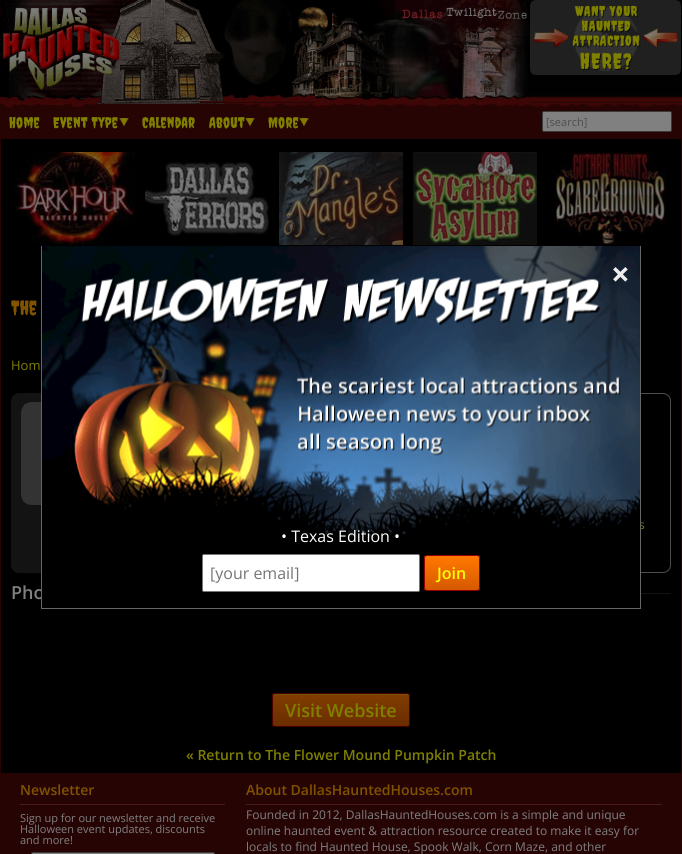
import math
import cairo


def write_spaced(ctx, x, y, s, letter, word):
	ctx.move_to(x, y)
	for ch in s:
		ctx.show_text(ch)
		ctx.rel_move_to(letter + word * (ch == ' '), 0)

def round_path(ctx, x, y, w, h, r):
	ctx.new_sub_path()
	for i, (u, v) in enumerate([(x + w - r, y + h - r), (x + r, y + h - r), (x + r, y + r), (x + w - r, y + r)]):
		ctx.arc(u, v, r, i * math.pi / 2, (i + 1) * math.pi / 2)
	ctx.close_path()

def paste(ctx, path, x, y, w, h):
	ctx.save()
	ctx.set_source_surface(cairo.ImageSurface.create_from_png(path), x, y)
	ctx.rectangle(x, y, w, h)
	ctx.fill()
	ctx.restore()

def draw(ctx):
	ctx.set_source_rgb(0.149, 0.016, 0.016)
	ctx.paint()
	paste(ctx, 'media/1.png', 200, 0, 482, 103)
	paste(ctx, 'media/2.png', 0, 0, 120, 103)
	paste(ctx, 'media/3.png', 120, 0, 80, 103)
	paste(ctx, 'media/4.png', 200, 0, 115, 101)
	paste(ctx, 'media/5.png', 315, 0, 80, 103)
	paste(ctx, 'media/6.png', 395, 0, 135, 103)
	paste(ctx, 'media/7.png', 530, 0, 151, 75)
	paste(ctx, 'media/8.png', 0, 103, 682, 6)
	ctx.select_font_face('Creepster')
	ctx.set_font_size(15)
	ctx.set_source_rgb(0.502, 0.502, 0)
	write_spaced(ctx, 9, 128, 'Home', 0.25, 0)
	paste(ctx, 'media/9.png', 119, 118, 10, 8)
	write_spaced(ctx, 53, 128, 'Event Type', 0.25, 0)
	write_spaced(ctx, 142, 128, 'Calendar', 0.25, 0)
	paste(ctx, 'media/9.png', 245, 118, 10, 8)
	write_spaced(ctx, 209, 128, 'About', 0.25, 0)
	paste(ctx, 'media/9.png', 299, 118, 10, 8)
	write_spaced(ctx, 268, 128, 'More', 0.25, 0)
	ctx.set_source_rgb(0.502, 0.502, 0.502)
	round_path(ctx, 542.5, 111.5, 129, 20, 1.5)
	ctx.fill_preserve()
	ctx.set_source_rgb(0.231, 0.231, 0.231)
	ctx.set_line_width(1)
	ctx.stroke()
	ctx.select_font_face('Open Sans')
	ctx.set_font_size(11)
	ctx.set_source_rgb(0.302, 0.302, 0.302)
	ctx.move_to(546, 126)
	ctx.show_text('[search]')
	ctx.set_source_rgb(0, 0, 0)
	ctx.rectangle(1, 139, 680, 634)
	ctx.fill()
	paste(ctx, 'media/10.png', 11, 152, 124, 93)
	paste(ctx, 'media/11.png', 145, 162, 124, 75)
	paste(ctx, 'media/12.png', 279, 152, 124, 93)
	paste(ctx, 'media/13.png', 413, 152, 124, 93)
	paste(ctx, 'media/14.png', 547, 152, 119, 93)
	ctx.select_font_face('Creepster')
	ctx.set_font_size(20)
	ctx.set_source_rgb(0.502, 0.325, 0)
	ctx.move_to(11, 315)
	ctx.show_text('The')
	ctx.select_font_face('Open Sans')
	ctx.set_font_size(13)
	ctx.set_source_rgb(0.502, 0.502, 0)
	ctx.move_to(11, 370)
	ctx.show_text('Hom')
	ctx.set_source_rgb(0.075, 0.075, 0.075)
	round_path(ctx, 11, 393, 323, 180, 8)
	ctx.fill()
	paste(ctx, 'media/15.png', 21, 402, 20, 103)
	round_path(ctx, 348.5, 393.5, 322, 179, 7.5)
	ctx.set_source_rgb(0.302, 0.302, 0.302)
	ctx.stroke()
	ctx.set_font_size(12)
	ctx.set_source_rgb(0.502, 0.502, 0)
	ctx.move_to(639, 529)
	ctx.show_text('s')
	ctx.set_source_rgb(0.082, 0.082, 0.082)
	ctx.rectangle(641, 593, 30, 1)
	ctx.fill()
	ctx.select_font_face('Open Sans SemiBold')
	ctx.set_font_size(18)
	ctx.set_source_rgb(0.502, 0.502, 0.502)
	ctx.move_to(11, 599)
	ctx.show_text('Pho')
	ctx.save()
	round_path(ctx, 272, 693, 138, 34, 3)
	ctx.clip()
	gradient = cairo.LinearGradient(341, 694, 341, 726)
	gradient.add_color_stop_rgba(0.05, 0.502, 0.235, 0, 1)
	gradient.add_color_stop_rgba(1, 0.42, 0.176, 0, 1)
	ctx.set_source(gradient)
	ctx.rectangle(272, 694, 138, 32)
	ctx.fill()
	ctx.restore()
	ctx.set_source_rgb(0.463, 0.325, 0)
	ctx.new_path()
	ctx.move_to(275, 695)
	ctx.line_to(407, 695)
	ctx.curve_to(408, 695, 409, 696, 409, 697)
	ctx.curve_to(409, 695, 408, 694, 406, 694)
	ctx.line_to(276, 694)
	ctx.curve_to(274, 694, 273, 695, 273, 697)
	ctx.curve_to(273, 696, 274, 695, 275, 695)
	ctx.close_path()
	ctx.fill()
	round_path(ctx, 272.5, 693.5, 137, 33, 2.5)
	ctx.set_source_rgb(0.294, 0, 0)
	ctx.stroke()
	ctx.set_source_rgb(0.502, 0.502, 0)
	ctx.move_to(285, 717)
	ctx.show_text('Visit Website')
	ctx.set_font_size(14)
	ctx.move_to(186, 760)
	ctx.show_text('« Return to The Flower Mound Pumpkin Patch')
	ctx.set_source_rgb(0.502, 0.325, 0)
	ctx.move_to(20, 795)
	ctx.show_text('Newsletter')
	ctx.set_source_rgb(0.286, 0.102, 0.122)
	ctx.rectangle(20, 804, 205, 1)
	ctx.fill()
	ctx.select_font_face('Open Sans')
	ctx.set_font_size(11)
	ctx.set_source_rgb(0.502, 0.502, 0.502)
	for x, y, s in [
		(20, 822, 'Sign up for our newsletter and receive'),
		(20, 833, 'Halloween event updates, discounts'),
		(20, 844, 'and more!'),
	]:
		ctx.move_to(x, y)
		ctx.show_text(s)
	round_path(ctx, 31.5, 852.5, 183, 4, 1.5)
	ctx.fill_preserve()
	ctx.set_source_rgb(0.231, 0.231, 0.231)
	ctx.stroke()
	ctx.select_font_face('Open Sans SemiBold')
	ctx.set_font_size(14)
	ctx.set_source_rgb(0.502, 0.325, 0)
	ctx.move_to(246, 795)
	ctx.show_text('About DallasHauntedHouses.com')
	ctx.set_source_rgb(0.286, 0.102, 0.122)
	ctx.rectangle(246, 804, 416, 1)
	ctx.fill()
	ctx.select_font_face('Open Sans')
	ctx.set_font_size(12)
	ctx.set_source_rgb(0.502, 0.502, 0.502)
	for x, y, s in [
		(246, 819, 'Founded in 2012, DallasHauntedHouses.com is a simple and unique'),
		(246, 835, 'online haunted event & attraction resource created to make it easy for'),
		(246, 851, 'locals to find Haunted House, Spook Walk, Corn Maze, and other'),
	]:
		ctx.move_to(x, y)
		ctx.show_text(s)
	ctx.set_source_rgb(0, 0, 0)
	ctx.rectangle(42, 539, 598, 60)
	ctx.fill()
	ctx.rectangle(41.5, 246.5, 599, 362)
	ctx.set_source_rgb(0.4, 0.4, 0.4)
	ctx.stroke()
	paste(ctx, 'media/16.png', 42, 246, 598, 293)
	ctx.select_font_face('Open Sans', cairo.FONT_SLANT_NORMAL, cairo.FONT_WEIGHT_BOLD)
	ctx.set_font_size(33)
	ctx.set_source_rgb(0.933, 0.933, 0.933)
	ctx.move_to(611, 286)
	ctx.show_text('×')
	ctx.select_font_face('Open Sans')
	ctx.set_font_size(16)
	ctx.set_source_rgb(1, 1, 1)
	ctx.move_to(281, 542)
	ctx.show_text('• Texas Edition •')
	round_path(ctx, 202.5, 554.5, 217, 37, 1.5)
	ctx.fill_preserve()
	ctx.set_source_rgb(0.463, 0.463, 0.463)
	ctx.stroke()
	ctx.set_source_rgb(0.459, 0.459, 0.459)
	ctx.move_to(210, 579)
	ctx.show_text('[your email]')
	ctx.save()
	round_path(ctx, 424, 555, 56, 36, 3)
	ctx.clip()
	gradient = cairo.LinearGradient(452, 556, 452, 590)
	gradient.add_color_stop_rgba(0.05, 1, 0.467, 0, 1)
	gradient.add_color_stop_rgba(1, 0.835, 0.349, 0, 1)
	ctx.set_source(gradient)
	ctx.rectangle(424, 556, 56, 34)
	ctx.fill()
	ctx.restore()
	ctx.set_source_rgb(0.922, 0.647, 0)
	ctx.set_fill_rule(cairo.FILL_RULE_EVEN_ODD)
	ctx.new_path()
	ctx.move_to(479, 559)
	ctx.curve_to(479, 557, 478, 556, 477, 556)
	ctx.curve_to(479, 556, 479, 558, 479, 559)
	ctx.close_path()
	ctx.move_to(427, 556)
	ctx.curve_to(426, 556, 425, 557, 425, 559)
	ctx.curve_to(425, 558, 425, 556, 427, 556)
	ctx.close_path()
	ctx.fill()
	round_path(ctx, 424.5, 555.5, 55, 35, 2.5)
	ctx.set_source_rgb(0.588, 0, 0)
	ctx.stroke()
	ctx.select_font_face('Open Sans SemiBold')
	ctx.set_source_rgb(1, 1, 0)
	ctx.move_to(437, 579)
	ctx.show_text('Join')


surface = cairo.ImageSurface(cairo.FORMAT_RGB24, 682, 854)
ctx = cairo.Context(surface)
options = cairo.FontOptions()
options.set_hint_metrics(cairo.HINT_METRICS_OFF)
options.set_hint_style(cairo.HINT_STYLE_NONE)
ctx.set_font_options(options)
ctx.set_miter_limit(4)
draw(ctx)
surface.write_to_png('image.png')
